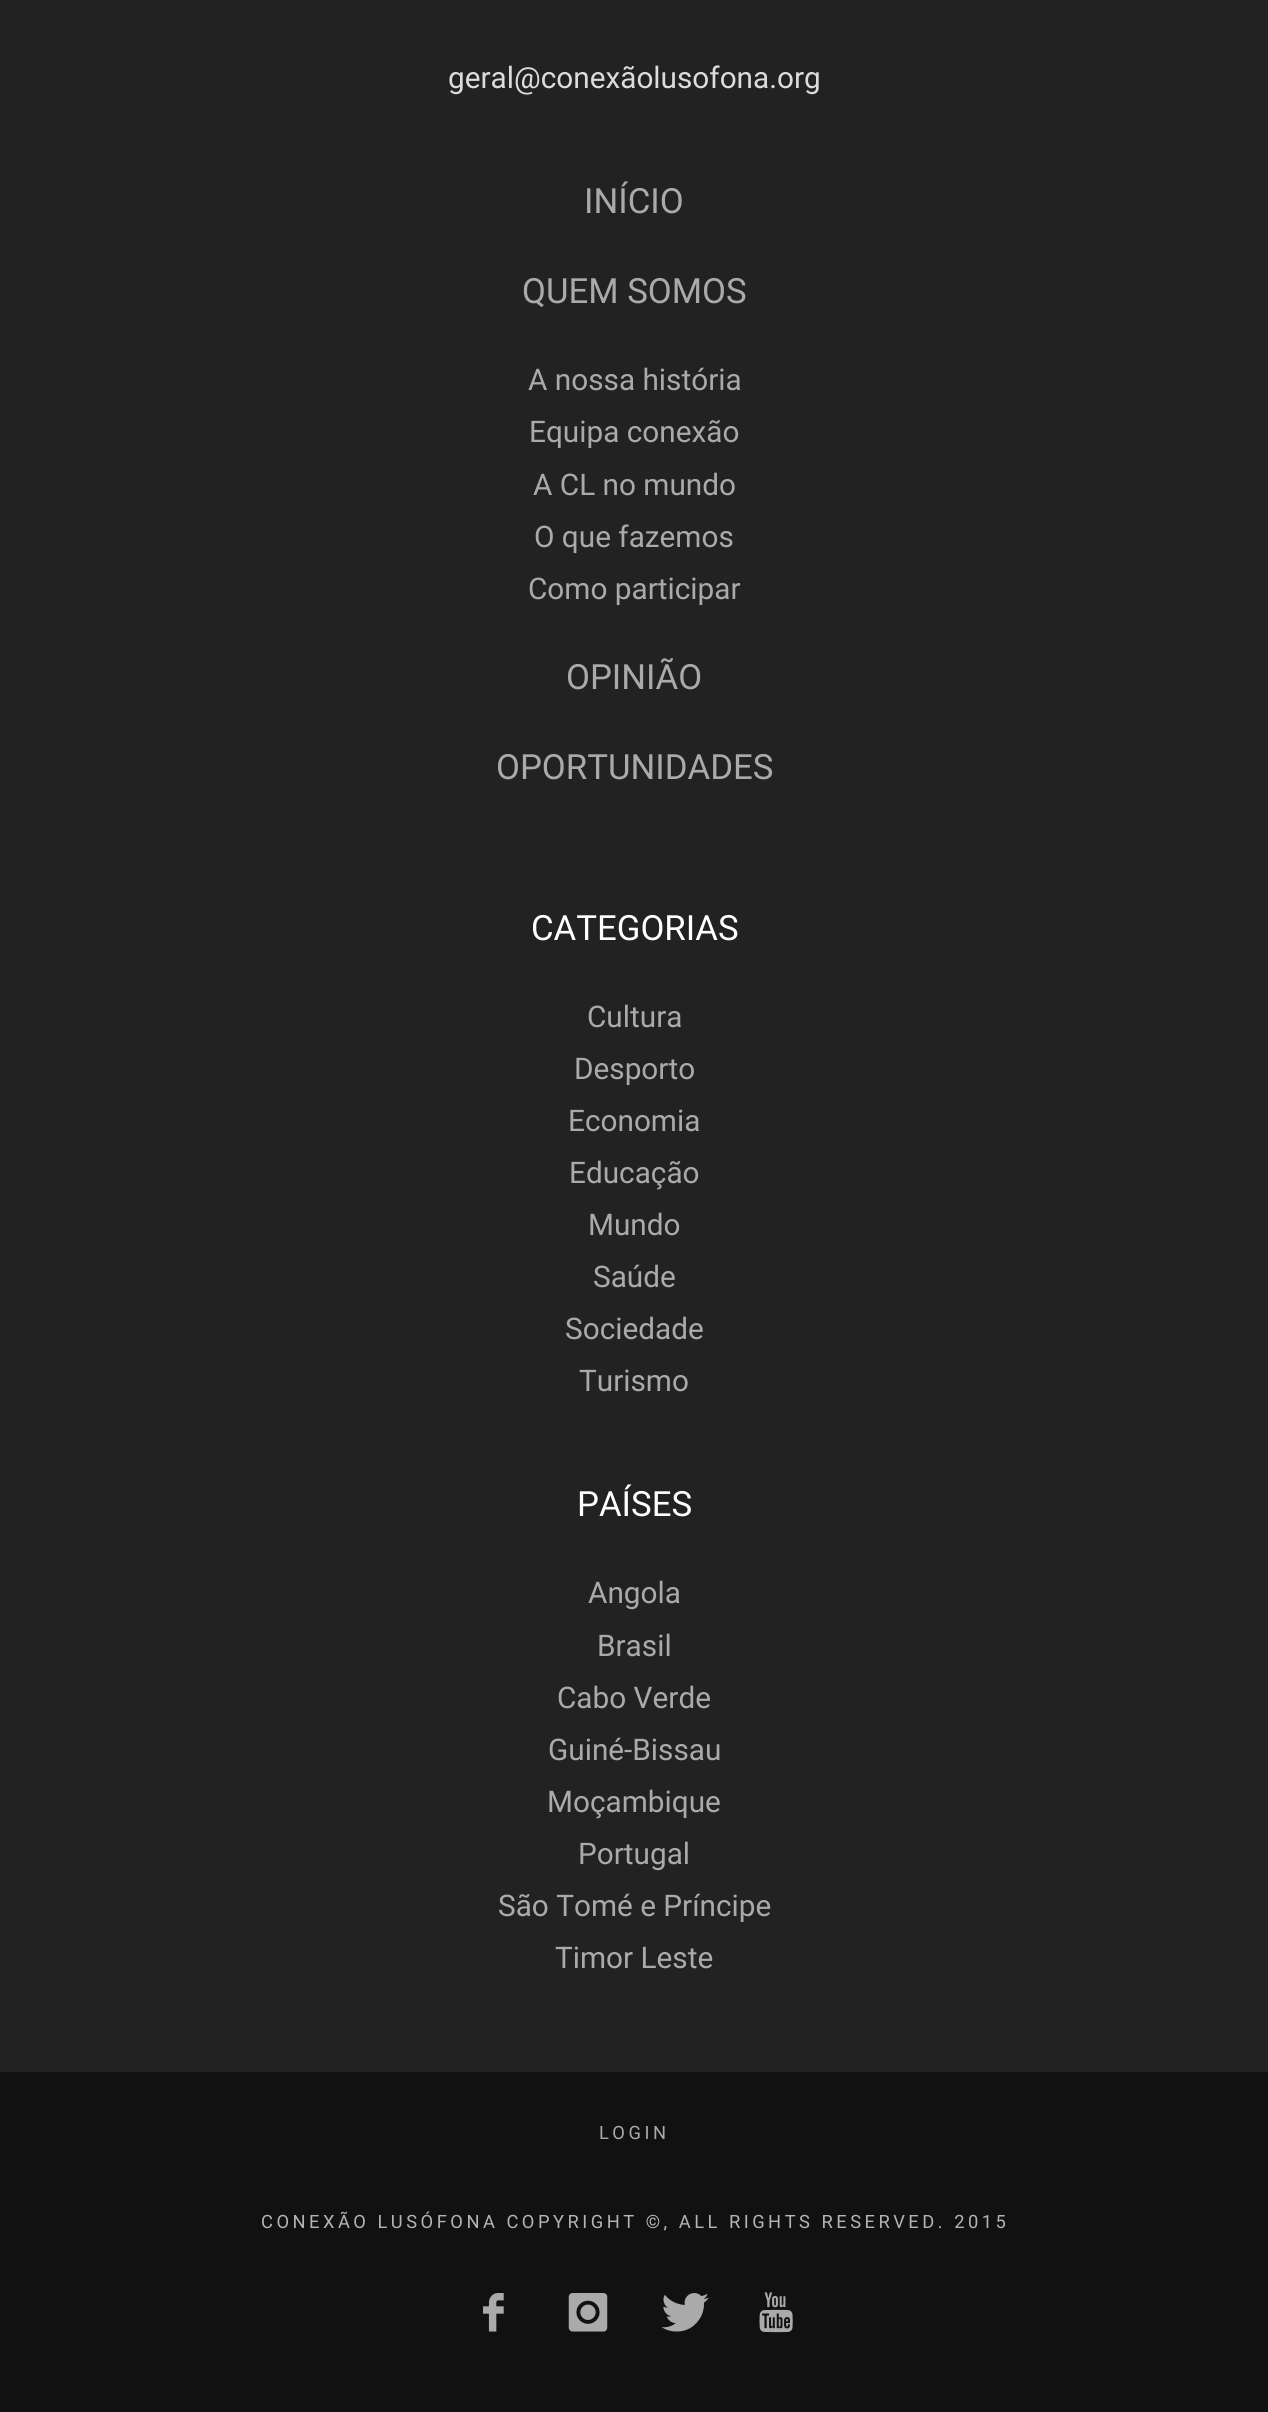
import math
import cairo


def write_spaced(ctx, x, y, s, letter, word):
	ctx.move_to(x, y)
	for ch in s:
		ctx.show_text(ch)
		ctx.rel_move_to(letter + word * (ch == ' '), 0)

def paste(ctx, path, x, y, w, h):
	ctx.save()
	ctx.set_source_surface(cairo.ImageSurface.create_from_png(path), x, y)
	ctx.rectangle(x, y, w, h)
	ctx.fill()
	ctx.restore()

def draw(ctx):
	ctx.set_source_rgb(0.133, 0.133, 0.133)
	ctx.paint()
	ctx.select_font_face('Roboto')
	ctx.set_font_size(29.75)
	ctx.set_source_rgb(0.863, 0.863, 0.863)
	ctx.move_to(448, 88)
	ctx.show_text('geral@conexãolusofona.org')
	ctx.set_font_size(34.75)
	ctx.set_source_rgb(0.667, 0.667, 0.667)
	ctx.move_to(584, 213)
	ctx.show_text('INÍCIO')
	ctx.move_to(522, 303)
	ctx.show_text('QUEM SOMOS')
	ctx.set_font_size(29.75)
	for x, y, s in [
		(528, 390, 'A nossa história'),
		(529, 442, 'Equipa conexão'),
		(533, 495, 'A CL no mundo'),
		(534, 547, 'O que fazemos'),
		(528, 599, 'Como participar'),
	]:
		ctx.move_to(x, y)
		ctx.show_text(s)
	ctx.set_font_size(34.75)
	ctx.move_to(566, 689)
	ctx.show_text('OPINIÃO')
	ctx.move_to(496, 779)
	ctx.show_text('OPORTUNIDADES')
	ctx.set_source_rgb(1, 1, 1)
	ctx.move_to(531, 940)
	ctx.show_text('CATEGORIAS')
	ctx.set_font_size(29.75)
	ctx.set_source_rgb(0.667, 0.667, 0.667)
	for x, y, s in [
		(587, 1027, 'Cultura'),
		(574, 1079, 'Desporto'),
		(568, 1131, 'Economia'),
		(569, 1183, 'Educação'),
		(588, 1235, 'Mundo'),
		(593, 1287, 'Saúde'),
		(565, 1339, 'Sociedade'),
		(579, 1391, 'Turismo'),
	]:
		ctx.move_to(x, y)
		ctx.show_text(s)
	ctx.set_font_size(34.75)
	ctx.set_source_rgb(1, 1, 1)
	ctx.move_to(577, 1516)
	ctx.show_text('PAÍSES')
	ctx.set_font_size(29.75)
	ctx.set_source_rgb(0.667, 0.667, 0.667)
	for x, y, s in [
		(588, 1603, 'Angola'),
		(597, 1656, 'Brasil'),
		(557, 1708, 'Cabo Verde'),
		(548, 1760, 'Guiné-Bissau'),
		(547, 1812, 'Moçambique'),
		(578, 1864, 'Portugal'),
		(498, 1916, 'São Tomé e Príncipe'),
		(555, 1968, 'Timor Leste'),
	]:
		ctx.move_to(x, y)
		ctx.show_text(s)
	ctx.set_source_rgb(0.067, 0.067, 0.067)
	ctx.rectangle(0, 2072, 1268, 340)
	ctx.fill()
	ctx.set_font_size(18.3)
	ctx.set_source_rgb(0.667, 0.667, 0.667)
	write_spaced(ctx, 599, 2139, 'LOGIN', 3.5, 0)
	ctx.set_source_rgb(0.706, 0.706, 0.706)
	write_spaced(ctx, 261, 2228, 'CONEXÃO LUSÓFONA COPYRIGHT ©, ALL RIGHTS RESERVED. 2015', 3.5, 0)
	paste(ctx, 'media/1.png', 483, 2293, 21, 39)
	paste(ctx, 'media/2.png', 568, 2293, 40, 39)
	paste(ctx, 'media/3.png', 661, 2293, 48, 39)
	paste(ctx, 'media/4.png', 759, 2292, 34, 41)


surface = cairo.ImageSurface(cairo.FORMAT_RGB24, 1268, 2412)
ctx = cairo.Context(surface)
options = cairo.FontOptions()
options.set_hint_metrics(cairo.HINT_METRICS_OFF)
options.set_hint_style(cairo.HINT_STYLE_NONE)
ctx.set_font_options(options)
ctx.set_miter_limit(4)
draw(ctx)
surface.write_to_png('image.png')
